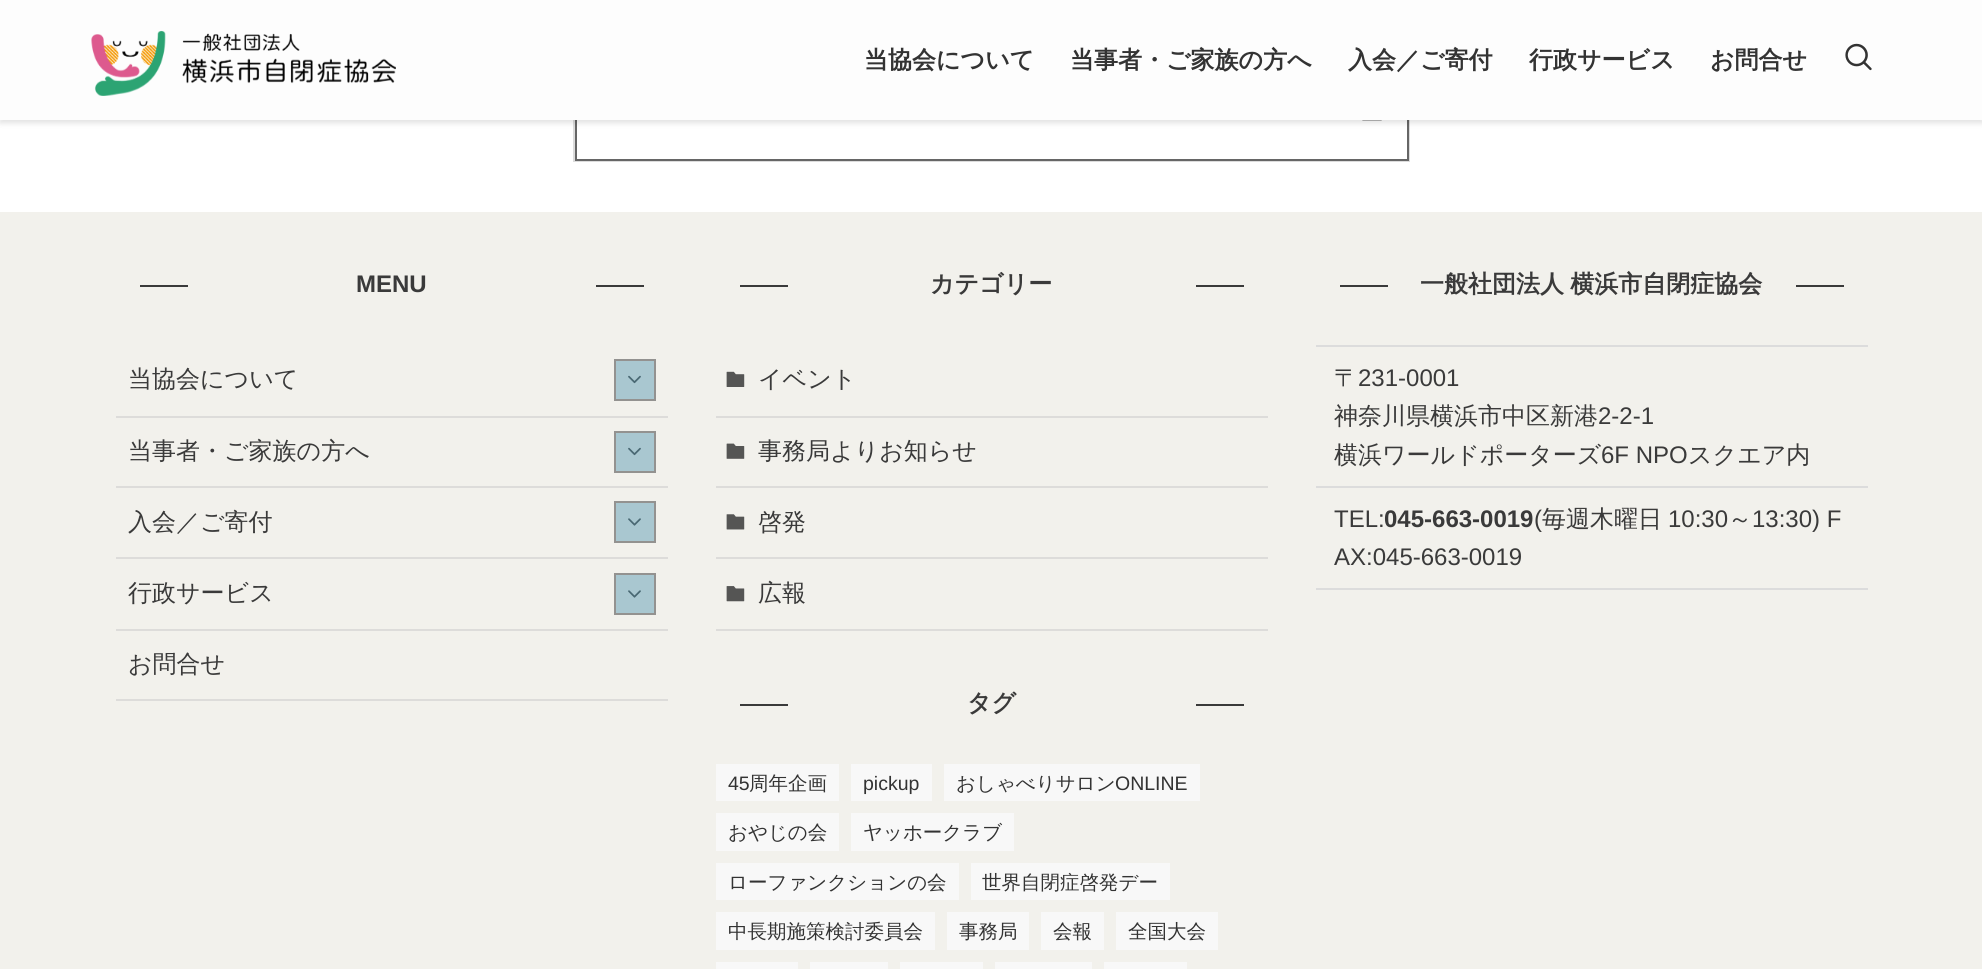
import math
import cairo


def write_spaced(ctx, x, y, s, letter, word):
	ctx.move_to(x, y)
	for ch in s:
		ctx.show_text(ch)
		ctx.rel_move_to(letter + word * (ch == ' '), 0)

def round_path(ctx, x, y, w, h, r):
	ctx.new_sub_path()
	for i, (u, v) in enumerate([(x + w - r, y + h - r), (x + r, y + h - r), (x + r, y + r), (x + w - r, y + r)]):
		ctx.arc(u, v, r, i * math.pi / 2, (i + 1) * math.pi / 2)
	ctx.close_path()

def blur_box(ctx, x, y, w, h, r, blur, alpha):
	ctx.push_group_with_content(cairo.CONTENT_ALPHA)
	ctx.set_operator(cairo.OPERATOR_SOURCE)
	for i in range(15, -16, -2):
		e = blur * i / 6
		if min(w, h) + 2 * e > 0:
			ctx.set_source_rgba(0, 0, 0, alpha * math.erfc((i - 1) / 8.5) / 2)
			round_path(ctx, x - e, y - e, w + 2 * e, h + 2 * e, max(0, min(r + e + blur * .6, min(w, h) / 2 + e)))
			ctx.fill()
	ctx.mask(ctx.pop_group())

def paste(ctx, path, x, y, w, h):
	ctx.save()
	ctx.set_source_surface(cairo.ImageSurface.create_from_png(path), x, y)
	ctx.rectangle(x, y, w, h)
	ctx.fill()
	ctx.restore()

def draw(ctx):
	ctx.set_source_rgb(1, 1, 1)
	ctx.paint()
	ctx.rectangle(574, 79, 835, 82)
	ctx.set_source_rgb(0.863, 0.863, 0.863)
	ctx.stroke()
	ctx.rectangle(576, 81, 832, 79)
	ctx.set_source_rgb(0.4, 0.4, 0.4)
	ctx.stroke()
	paste(ctx, 'media/3.png', 1362, 120, 20, 1)
	ctx.set_source_rgb(0, 0, 0)
	blur_box(ctx, 0, 3, 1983, 120, 0, 3, 0.12)
	ctx.set_source_rgb(0.992, 0.992, 0.992)
	ctx.rectangle(0, 0, 1982, 120)
	ctx.fill()
	paste(ctx, 'media/1.png', 91, 30, 305, 66)
	ctx.select_font_face('WenQuanYi Zen Hei', cairo.FONT_SLANT_NORMAL, cairo.FONT_WEIGHT_BOLD)
	ctx.set_font_size(24)
	ctx.set_source_rgb(0.2, 0.2, 0.2)
	for x, y, s in [
		(864, 68, '当協会について'),
		(1070, 68, '当事者・ご家族の方へ'),
		(1348, 68, '入会／ご寄付'),
		(1529, 68, '行政サービス'),
		(1710, 68, 'お問合せ'),
	]:
		ctx.move_to(x, y)
		ctx.show_text(s)
	paste(ctx, 'media/2.png', 1845, 43, 27, 28)
	ctx.set_source_rgb(0.949, 0.945, 0.925)
	ctx.rectangle(0, 212, 1982, 757)
	ctx.fill()
	ctx.set_source_rgb(0.663, 0.78, 0.816)
	ctx.rectangle(616, 575, 38, 38)
	ctx.rectangle(616, 503, 38, 38)
	ctx.rectangle(616, 433, 38, 38)
	ctx.rectangle(616, 361, 38, 38)
	ctx.fill()
	ctx.set_source_rgb(0.227, 0.227, 0.227)
	ctx.rectangle(140, 285, 48, 2)
	ctx.fill()
	ctx.select_font_face('Liberation Sans', cairo.FONT_SLANT_NORMAL, cairo.FONT_WEIGHT_BOLD)
	ctx.move_to(356, 292)
	ctx.show_text('MENU')
	ctx.rectangle(596, 285, 48, 2)
	ctx.fill()
	ctx.set_source_rgb(0.867, 0.863, 0.855)
	ctx.rectangle(116, 416, 552, 2)
	ctx.fill()
	ctx.select_font_face('WenQuanYi Zen Hei Medium')
	ctx.set_source_rgb(0.227, 0.227, 0.227)
	ctx.move_to(128, 387)
	ctx.show_text('当協会について')
	paste(ctx, 'media/4.png', 628, 375, 13, 9)
	ctx.rectangle(615, 360, 40, 40)
	ctx.set_source_rgb(0.576, 0.573, 0.565)
	ctx.stroke()
	ctx.set_source_rgb(0.867, 0.863, 0.855)
	ctx.rectangle(116, 486, 552, 2)
	ctx.fill()
	ctx.set_source_rgb(0.227, 0.227, 0.227)
	ctx.move_to(128, 459)
	ctx.show_text('当事者・ご家族の方へ')
	paste(ctx, 'media/4.png', 628, 447, 13, 9)
	ctx.rectangle(615, 432, 40, 40)
	ctx.set_source_rgb(0.576, 0.573, 0.565)
	ctx.stroke()
	ctx.set_source_rgb(0.867, 0.863, 0.855)
	ctx.rectangle(116, 557, 552, 2)
	ctx.fill()
	ctx.set_source_rgb(0.227, 0.227, 0.227)
	ctx.move_to(128, 530)
	ctx.show_text('入会／ご寄付')
	paste(ctx, 'media/5.png', 628, 518, 13, 8)
	ctx.rectangle(615, 502, 40, 40)
	ctx.set_source_rgb(0.576, 0.573, 0.565)
	ctx.stroke()
	ctx.set_source_rgb(0.867, 0.863, 0.855)
	ctx.rectangle(116, 629, 552, 2)
	ctx.fill()
	ctx.set_source_rgb(0.227, 0.227, 0.227)
	ctx.move_to(128, 601)
	ctx.show_text('行政サービス')
	paste(ctx, 'media/5.png', 628, 590, 13, 8)
	ctx.rectangle(615, 574, 40, 40)
	ctx.set_source_rgb(0.576, 0.573, 0.565)
	ctx.stroke()
	ctx.set_source_rgb(0.867, 0.863, 0.855)
	ctx.rectangle(116, 699, 552, 2)
	ctx.fill()
	ctx.set_source_rgb(0.227, 0.227, 0.227)
	ctx.move_to(128, 672)
	ctx.show_text('お問合せ')
	ctx.rectangle(740, 285, 48, 2)
	ctx.fill()
	ctx.select_font_face('WenQuanYi Zen Hei', cairo.FONT_SLANT_NORMAL, cairo.FONT_WEIGHT_BOLD)
	ctx.move_to(930, 292)
	ctx.show_text('カテゴリー')
	ctx.rectangle(1196, 285, 48, 2)
	ctx.fill()
	ctx.set_source_rgb(0.867, 0.863, 0.855)
	ctx.rectangle(716, 416, 552, 2)
	ctx.fill()
	paste(ctx, 'media/6.png', 726, 371, 19, 16)
	ctx.select_font_face('WenQuanYi Zen Hei Medium')
	ctx.set_source_rgb(0.227, 0.227, 0.227)
	ctx.move_to(758, 387)
	ctx.show_text('イベント')
	ctx.set_source_rgb(0.867, 0.863, 0.855)
	ctx.rectangle(716, 486, 552, 2)
	ctx.fill()
	paste(ctx, 'media/7.png', 726, 443, 19, 16)
	ctx.set_source_rgb(0.227, 0.227, 0.227)
	ctx.move_to(758, 459)
	ctx.show_text('事務局よりお知らせ')
	ctx.set_source_rgb(0.867, 0.863, 0.855)
	ctx.rectangle(716, 557, 552, 2)
	ctx.fill()
	paste(ctx, 'media/8.png', 726, 514, 19, 16)
	ctx.set_source_rgb(0.227, 0.227, 0.227)
	ctx.move_to(758, 530)
	ctx.show_text('啓発')
	ctx.set_source_rgb(0.867, 0.863, 0.855)
	ctx.rectangle(716, 629, 552, 2)
	ctx.fill()
	paste(ctx, 'media/9.png', 726, 586, 19, 16)
	ctx.set_source_rgb(0.227, 0.227, 0.227)
	ctx.move_to(758, 601)
	ctx.show_text('広報')
	ctx.rectangle(740, 704, 48, 2)
	ctx.fill()
	ctx.select_font_face('WenQuanYi Zen Hei', cairo.FONT_SLANT_NORMAL, cairo.FONT_WEIGHT_BOLD)
	ctx.move_to(967, 711)
	ctx.show_text('タグ')
	ctx.rectangle(1196, 704, 48, 2)
	ctx.fill()
	ctx.set_source_rgb(0.969, 0.969, 0.969)
	ctx.rectangle(716, 764, 123, 37)
	ctx.fill()
	ctx.select_font_face('Liberation Sans')
	ctx.set_font_size(19.5)
	ctx.set_source_rgb(0.2, 0.2, 0.2)
	ctx.move_to(728, 790)
	ctx.show_text('45')
	ctx.select_font_face('WenQuanYi Zen Hei Medium')
	ctx.move_to(749, 790)
	ctx.show_text('周年企画')
	ctx.set_source_rgb(0.969, 0.969, 0.969)
	ctx.rectangle(851, 764, 81, 37)
	ctx.fill()
	ctx.select_font_face('Liberation Sans')
	ctx.set_source_rgb(0.2, 0.2, 0.2)
	ctx.move_to(863, 790)
	ctx.show_text('pickup')
	ctx.set_source_rgb(0.969, 0.969, 0.969)
	ctx.rectangle(944, 764, 256, 37)
	ctx.fill()
	ctx.select_font_face('WenQuanYi Zen Hei Medium')
	ctx.set_source_rgb(0.2, 0.2, 0.2)
	ctx.move_to(956, 790)
	ctx.show_text('おしゃべりサロン')
	ctx.select_font_face('Liberation Sans')
	ctx.move_to(1115, 790)
	ctx.show_text('ONLINE')
	ctx.set_source_rgb(0.969, 0.969, 0.969)
	ctx.rectangle(716, 813, 123, 38)
	ctx.fill()
	ctx.select_font_face('WenQuanYi Zen Hei Medium')
	ctx.set_source_rgb(0.2, 0.2, 0.2)
	ctx.move_to(728, 839)
	ctx.show_text('おやじの会')
	ctx.set_source_rgb(0.969, 0.969, 0.969)
	ctx.rectangle(851, 813, 163, 38)
	ctx.fill()
	ctx.set_source_rgb(0.2, 0.2, 0.2)
	ctx.move_to(863, 839)
	ctx.show_text('ヤッホークラブ')
	ctx.set_source_rgb(0.969, 0.969, 0.969)
	ctx.rectangle(716, 863, 243, 37)
	ctx.fill()
	ctx.set_source_rgb(0.2, 0.2, 0.2)
	ctx.move_to(728, 889)
	ctx.show_text('ローファンクションの会')
	ctx.set_source_rgb(0.969, 0.969, 0.969)
	ctx.rectangle(971, 863, 199, 37)
	ctx.fill()
	ctx.set_source_rgb(0.2, 0.2, 0.2)
	ctx.move_to(982, 889)
	ctx.show_text('世界自閉症啓発デー')
	ctx.set_source_rgb(0.969, 0.969, 0.969)
	ctx.rectangle(716, 912, 219, 38)
	ctx.fill()
	ctx.set_source_rgb(0.2, 0.2, 0.2)
	ctx.move_to(728, 938)
	ctx.show_text('中長期施策検討委員会')
	ctx.set_source_rgb(0.969, 0.969, 0.969)
	ctx.rectangle(947, 912, 82, 38)
	ctx.fill()
	ctx.set_source_rgb(0.2, 0.2, 0.2)
	ctx.move_to(959, 938)
	ctx.show_text('事務局')
	ctx.set_source_rgb(0.969, 0.969, 0.969)
	ctx.rectangle(1041, 912, 63, 38)
	ctx.fill()
	ctx.set_source_rgb(0.2, 0.2, 0.2)
	ctx.move_to(1053, 938)
	ctx.show_text('会報')
	ctx.set_source_rgb(0.969, 0.969, 0.969)
	ctx.rectangle(1116, 912, 102, 38)
	ctx.fill()
	ctx.set_source_rgb(0.2, 0.2, 0.2)
	ctx.move_to(1128, 938)
	ctx.show_text('全国大会')
	ctx.set_source_rgb(0.969, 0.969, 0.969)
	ctx.rectangle(716, 962, 82, 7)
	ctx.rectangle(810, 962, 78, 7)
	ctx.rectangle(900, 962, 83, 7)
	ctx.rectangle(995, 962, 97, 7)
	ctx.rectangle(1104, 962, 83, 7)
	ctx.fill()
	ctx.set_source_rgb(0.227, 0.227, 0.227)
	ctx.rectangle(1340, 285, 48, 2)
	ctx.fill()
	ctx.select_font_face('WenQuanYi Zen Hei', cairo.FONT_SLANT_NORMAL, cairo.FONT_WEIGHT_BOLD)
	ctx.set_font_size(24)
	write_spaced(ctx, 1420, 292, '一般社団法人 横浜市自閉症協会', 0, -1)
	ctx.rectangle(1796, 285, 48, 2)
	ctx.fill()
	ctx.set_source_rgb(0.863, 0.863, 0.863)
	ctx.rectangle(1316, 345, 552, 2)
	ctx.fill()
	ctx.select_font_face('WenQuanYi Zen Hei Medium')
	ctx.set_source_rgb(0.227, 0.227, 0.227)
	ctx.move_to(1334, 386)
	ctx.show_text('〒')
	ctx.select_font_face('Liberation Sans')
	ctx.move_to(1358, 386)
	ctx.show_text('231-0001')
	ctx.select_font_face('WenQuanYi Zen Hei Medium')
	ctx.move_to(1334, 424)
	ctx.show_text('神奈川県横浜市中区新港')
	ctx.select_font_face('Liberation Sans')
	ctx.move_to(1598, 424)
	ctx.show_text('2-2-1')
	ctx.select_font_face('WenQuanYi Zen Hei Medium')
	ctx.move_to(1334, 463)
	ctx.show_text('横浜ワールドポーターズ')
	ctx.select_font_face('Liberation Sans')
	ctx.move_to(1601, 463)
	ctx.show_text('6F NPO')
	ctx.select_font_face('WenQuanYi Zen Hei Medium')
	ctx.move_to(1688, 463)
	ctx.show_text('スクエア内')
	ctx.set_source_rgb(0.863, 0.863, 0.863)
	ctx.rectangle(1316, 486, 552, 2)
	ctx.fill()
	ctx.rectangle(1316, 588, 552, 2)
	ctx.fill()
	ctx.select_font_face('Liberation Sans')
	ctx.set_source_rgb(0.227, 0.227, 0.227)
	ctx.move_to(1334, 527)
	ctx.show_text('TEL:')
	ctx.select_font_face('Liberation Sans', cairo.FONT_SLANT_NORMAL, cairo.FONT_WEIGHT_BOLD)
	ctx.move_to(1384, 527)
	ctx.show_text('045-663-0019')
	ctx.select_font_face('Liberation Sans')
	ctx.move_to(1534, 527)
	ctx.show_text('(')
	ctx.select_font_face('WenQuanYi Zen Hei Medium')
	ctx.move_to(1542, 527)
	ctx.show_text('毎週木曜日')
	ctx.select_font_face('Liberation Sans')
	ctx.move_to(1668, 527)
	ctx.show_text('10:30')
	ctx.select_font_face('WenQuanYi Zen Hei Medium')
	ctx.move_to(1728, 527)
	ctx.show_text('～')
	ctx.select_font_face('Liberation Sans')
	ctx.move_to(1752, 527)
	ctx.show_text('13:30) F')
	ctx.move_to(1334, 565)
	ctx.show_text('AX:045-663-0019')


surface = cairo.ImageSurface(cairo.FORMAT_RGB24, 1982, 969)
ctx = cairo.Context(surface)
options = cairo.FontOptions()
options.set_hint_metrics(cairo.HINT_METRICS_OFF)
options.set_hint_style(cairo.HINT_STYLE_NONE)
ctx.set_font_options(options)
ctx.set_miter_limit(4)
draw(ctx)
surface.write_to_png('image.png')
